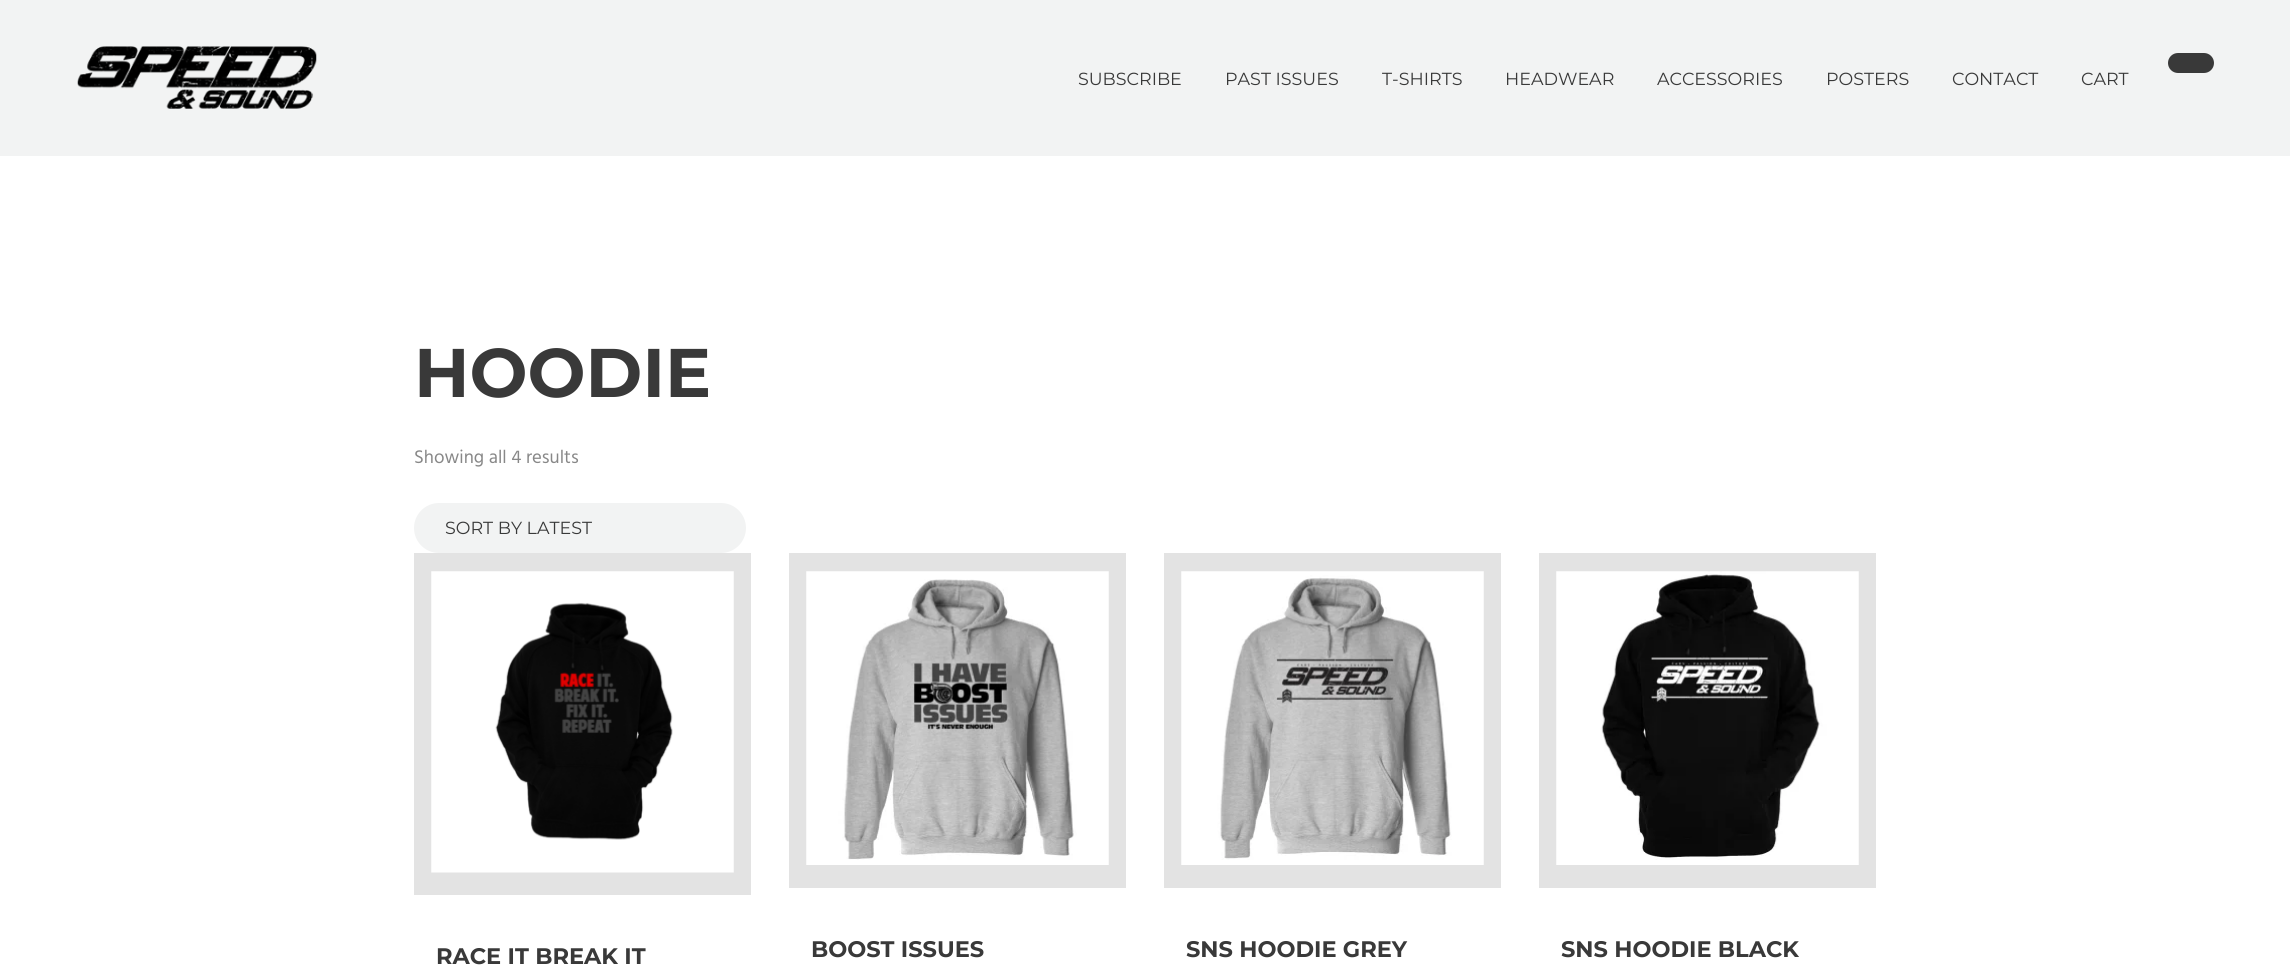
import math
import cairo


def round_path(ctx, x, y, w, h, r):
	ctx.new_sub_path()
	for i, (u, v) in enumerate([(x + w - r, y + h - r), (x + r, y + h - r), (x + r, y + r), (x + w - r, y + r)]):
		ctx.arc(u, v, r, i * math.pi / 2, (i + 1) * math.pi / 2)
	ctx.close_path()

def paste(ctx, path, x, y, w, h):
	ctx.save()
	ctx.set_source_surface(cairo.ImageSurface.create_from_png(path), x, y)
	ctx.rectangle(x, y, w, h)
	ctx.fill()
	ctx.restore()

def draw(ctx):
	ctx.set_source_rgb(1, 1, 1)
	ctx.paint()
	ctx.set_source_rgb(0.949, 0.953, 0.953)
	ctx.rectangle(0, 0, 2290, 156)
	ctx.fill()
	paste(ctx, 'media/1.png', 77, 46, 240, 63)
	ctx.set_source_rgb(0.224, 0.224, 0.224)
	round_path(ctx, 2168, 53, 46, 20, 10)
	ctx.fill()
	ctx.select_font_face('Montserrat')
	ctx.set_font_size(17.5)
	for x, y, s in [
		(1078, 85, 'SUBSCRIBE'),
		(1225, 85, 'PAST ISSUES'),
		(1382, 85, 'T-SHIRTS'),
		(1505, 85, 'HEADWEAR'),
		(1657, 85, 'ACCESSORIES'),
		(1826, 85, 'POSTERS'),
		(1952, 85, 'CONTACT'),
		(2081, 85, 'CART'),
	]:
		ctx.move_to(x, y)
		ctx.show_text(s)
	ctx.select_font_face('Montserrat', cairo.FONT_SLANT_NORMAL, cairo.FONT_WEIGHT_BOLD)
	ctx.set_font_size(68.75)
	ctx.move_to(414, 397)
	ctx.show_text('HOODIE')
	ctx.select_font_face('Hind')
	ctx.set_font_size(18.75)
	ctx.set_source_rgb(0.533, 0.533, 0.533)
	ctx.move_to(414, 463)
	ctx.show_text('Showing all 4 results')
	ctx.set_source_rgb(0.949, 0.953, 0.953)
	round_path(ctx, 415.5, 504.5, 329, 47, 23.5)
	ctx.fill_preserve()
	ctx.set_line_width(3)
	ctx.stroke()
	ctx.select_font_face('Montserrat')
	ctx.set_font_size(17.5)
	ctx.set_source_rgb(0.224, 0.224, 0.224)
	ctx.move_to(445, 534)
	ctx.show_text('SORT BY LATEST')
	ctx.set_source_rgb(0.89, 0.89, 0.89)
	ctx.rectangle(414, 553, 337, 342)
	ctx.fill()
	paste(ctx, 'media/2.png', 431, 571, 303, 302)
	ctx.select_font_face('Montserrat', cairo.FONT_SLANT_NORMAL, cairo.FONT_WEIGHT_BOLD)
	ctx.set_font_size(22.5)
	ctx.set_source_rgb(0.224, 0.224, 0.224)
	ctx.move_to(436, 964)
	ctx.show_text('RACE IT BREAK IT')
	ctx.set_source_rgb(0.89, 0.89, 0.89)
	ctx.rectangle(789, 553, 337, 335)
	ctx.fill()
	paste(ctx, 'media/3.png', 806, 571, 303, 294)
	ctx.set_source_rgb(0.224, 0.224, 0.224)
	ctx.move_to(811, 957)
	ctx.show_text('BOOST ISSUES')
	ctx.set_source_rgb(0.89, 0.89, 0.89)
	ctx.rectangle(1164, 553, 337, 335)
	ctx.fill()
	paste(ctx, 'media/4.png', 1181, 571, 303, 294)
	ctx.set_source_rgb(0.224, 0.224, 0.224)
	ctx.move_to(1186, 957)
	ctx.show_text('SNS HOODIE GREY')
	ctx.set_source_rgb(0.89, 0.89, 0.89)
	ctx.rectangle(1539, 553, 337, 335)
	ctx.fill()
	paste(ctx, 'media/5.png', 1556, 571, 303, 294)
	ctx.set_source_rgb(0.224, 0.224, 0.224)
	ctx.move_to(1561, 957)
	ctx.show_text('SNS HOODIE BLACK')


surface = cairo.ImageSurface(cairo.FORMAT_RGB24, 2290, 977)
ctx = cairo.Context(surface)
options = cairo.FontOptions()
options.set_hint_metrics(cairo.HINT_METRICS_OFF)
options.set_hint_style(cairo.HINT_STYLE_NONE)
ctx.set_font_options(options)
ctx.set_miter_limit(4)
draw(ctx)
surface.write_to_png('image.png')
